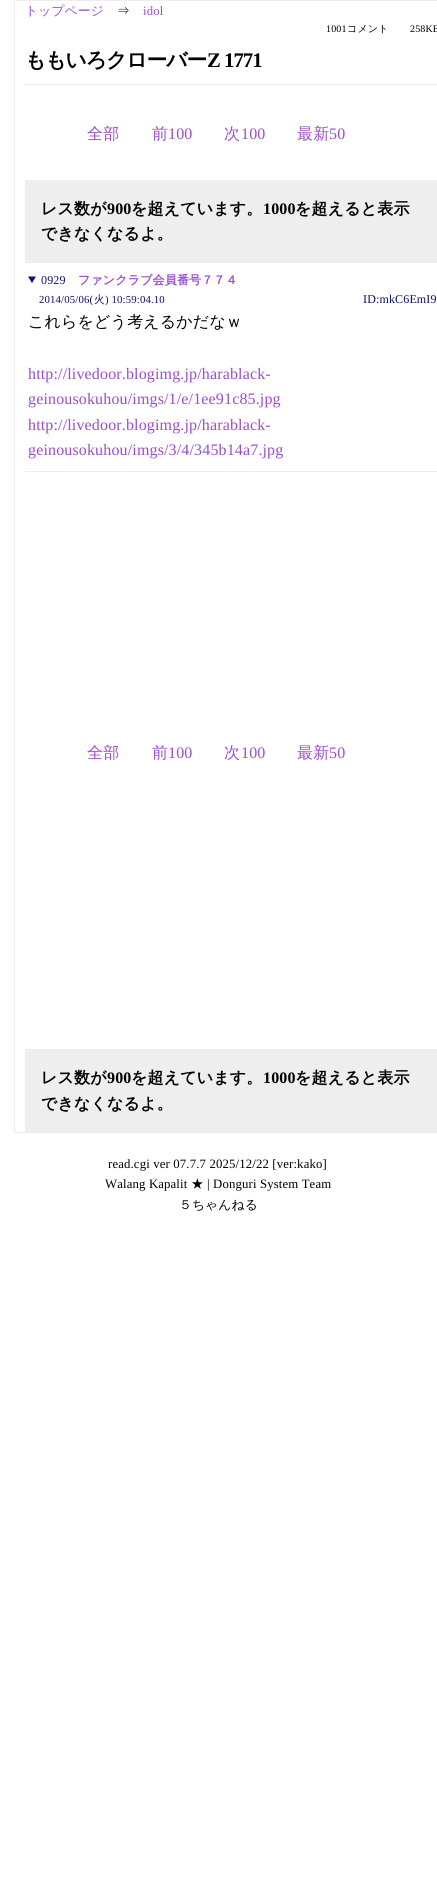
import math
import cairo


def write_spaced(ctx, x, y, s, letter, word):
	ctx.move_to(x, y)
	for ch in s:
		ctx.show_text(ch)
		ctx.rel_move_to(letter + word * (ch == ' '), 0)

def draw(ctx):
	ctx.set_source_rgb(1, 1, 1)
	ctx.paint()
	ctx.rectangle(14.5, 0.5, 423, 1132)
	ctx.set_source_rgb(0.933, 0.933, 0.933)
	ctx.set_line_width(1)
	ctx.stroke()
	ctx.select_font_face('WenQuanYi Zen Hei Medium')
	ctx.set_font_size(12.75)
	ctx.set_source_rgb(0.608, 0.302, 0.792)
	write_spaced(ctx, 25, 15, 'トップページ', 0.15, 0)
	ctx.set_source_rgb(0, 0, 0)
	write_spaced(ctx, 117, 15, '⇒', 0.15, 0)
	ctx.select_font_face('Liberation Serif')
	ctx.set_source_rgb(0.608, 0.302, 0.792)
	write_spaced(ctx, 143, 15, 'idol', 0.15, 0)
	ctx.set_font_size(10)
	ctx.set_source_rgb(0, 0, 0)
	write_spaced(ctx, 326, 32, '1001', 0.15, 0)
	ctx.select_font_face('WenQuanYi Zen Hei Medium')
	write_spaced(ctx, 347, 32, 'コメント', 0.15, 0)
	ctx.select_font_face('Liberation Serif')
	write_spaced(ctx, 410, 32, '258KB', 0.15, 0)
	ctx.set_source_rgb(0.933, 0.933, 0.933)
	ctx.rectangle(25, 84, 412, 1)
	ctx.fill()
	ctx.select_font_face('WenQuanYi Zen Hei', cairo.FONT_SLANT_NORMAL, cairo.FONT_WEIGHT_BOLD)
	ctx.set_font_size(20.75)
	ctx.set_source_rgb(0, 0, 0)
	write_spaced(ctx, 25, 67, 'ももいろクローバー', -1, 0)
	ctx.select_font_face('Liberation Serif', cairo.FONT_SLANT_NORMAL, cairo.FONT_WEIGHT_BOLD)
	write_spaced(ctx, 207, 67, 'Z 1771', -1, 0)
	ctx.select_font_face('WenQuanYi Zen Hei Medium')
	ctx.set_font_size(16)
	ctx.set_source_rgb(0.608, 0.302, 0.792)
	write_spaced(ctx, 87, 139, '全部', 0.15, 0)
	write_spaced(ctx, 152, 139, '前', 0.15, 0)
	ctx.select_font_face('Liberation Serif')
	write_spaced(ctx, 168, 139, '100', 0.15, 0)
	ctx.select_font_face('WenQuanYi Zen Hei Medium')
	write_spaced(ctx, 224, 139, '次', 0.15, 0)
	ctx.select_font_face('Liberation Serif')
	write_spaced(ctx, 241, 139, '100', 0.15, 0)
	ctx.select_font_face('WenQuanYi Zen Hei Medium')
	write_spaced(ctx, 297, 139, '最新', 0.15, 0)
	ctx.select_font_face('Liberation Serif')
	write_spaced(ctx, 329, 139, '50', 0.15, 0)
	ctx.set_source_rgb(0.933, 0.933, 0.933)
	ctx.rectangle(25, 180, 412, 83)
	ctx.fill()
	ctx.select_font_face('WenQuanYi Zen Hei', cairo.FONT_SLANT_NORMAL, cairo.FONT_WEIGHT_BOLD)
	ctx.set_source_rgb(0, 0, 0)
	write_spaced(ctx, 41, 214, 'レス数が', 0.15, 0)
	ctx.select_font_face('Liberation Serif', cairo.FONT_SLANT_NORMAL, cairo.FONT_WEIGHT_BOLD)
	write_spaced(ctx, 107, 214, '900', 0.15, 0)
	ctx.select_font_face('WenQuanYi Zen Hei', cairo.FONT_SLANT_NORMAL, cairo.FONT_WEIGHT_BOLD)
	write_spaced(ctx, 131, 214, 'を超えています。', 0.15, 0)
	ctx.select_font_face('Liberation Serif', cairo.FONT_SLANT_NORMAL, cairo.FONT_WEIGHT_BOLD)
	write_spaced(ctx, 263, 214, '1000', 0.15, 0)
	ctx.select_font_face('WenQuanYi Zen Hei', cairo.FONT_SLANT_NORMAL, cairo.FONT_WEIGHT_BOLD)
	write_spaced(ctx, 295, 214, 'を超えると表示', 0.15, 0)
	write_spaced(ctx, 41, 239, 'できなくなるよ。', 0.15, 0)
	ctx.set_source_rgb(0.933, 0.933, 0.933)
	ctx.rectangle(25, 471, 412, 1)
	ctx.fill()
	ctx.set_source_rgb(0.055, 0.055, 0.431)
	ctx.new_path()
	ctx.move_to(28, 276.5)
	ctx.line_to(36, 276.5)
	ctx.line_to(32, 283)
	ctx.close_path()
	ctx.fill()
	ctx.select_font_face('Liberation Serif')
	ctx.set_font_size(12)
	write_spaced(ctx, 41, 284, '0929', 0.15, 0)
	ctx.select_font_face('WenQuanYi Zen Hei', cairo.FONT_SLANT_NORMAL, cairo.FONT_WEIGHT_BOLD)
	ctx.set_source_rgb(0.608, 0.302, 0.792)
	write_spaced(ctx, 78, 284, 'ファンクラブ会員番号７７４', 0.15, 0)
	ctx.select_font_face('Liberation Serif')
	ctx.set_font_size(10.75)
	ctx.set_source_rgb(0.055, 0.055, 0.431)
	write_spaced(ctx, 39, 303, '2014/05/06(', 0.15, 0)
	ctx.select_font_face('WenQuanYi Zen Hei Medium')
	write_spaced(ctx, 94, 303, '火', 0.15, 0)
	ctx.select_font_face('Liberation Serif')
	write_spaced(ctx, 105, 303, ') 10:59:04.10', 0.15, 0)
	ctx.set_font_size(12)
	write_spaced(ctx, 363, 303, 'ID:mkC6EmI9', 0.15, 0)
	ctx.select_font_face('WenQuanYi Zen Hei Medium')
	ctx.set_font_size(16)
	ctx.set_source_rgb(0, 0, 0)
	write_spaced(ctx, 28, 327, 'これらをどう考えるかだなｗ', 0.15, 0)
	ctx.select_font_face('Liberation Serif')
	ctx.set_source_rgb(0.608, 0.302, 0.792)
	for x, y, s in [
		(28, 379, 'http://livedoor.blogimg.jp/harablack-'),
		(28, 404, 'geinousokuhou/imgs/1/e/1ee91c85.jpg'),
		(28, 430, 'http://livedoor.blogimg.jp/harablack-'),
		(28, 455, 'geinousokuhou/imgs/3/4/345b14a7.jpg'),
	]:
		write_spaced(ctx, x, y, s, 0.15, 0)
	ctx.select_font_face('WenQuanYi Zen Hei Medium')
	write_spaced(ctx, 87, 758, '全部', 0.15, 0)
	write_spaced(ctx, 152, 758, '前', 0.15, 0)
	ctx.select_font_face('Liberation Serif')
	write_spaced(ctx, 168, 758, '100', 0.15, 0)
	ctx.select_font_face('WenQuanYi Zen Hei Medium')
	write_spaced(ctx, 224, 758, '次', 0.15, 0)
	ctx.select_font_face('Liberation Serif')
	write_spaced(ctx, 241, 758, '100', 0.15, 0)
	ctx.select_font_face('WenQuanYi Zen Hei Medium')
	write_spaced(ctx, 297, 758, '最新', 0.15, 0)
	ctx.select_font_face('Liberation Serif')
	write_spaced(ctx, 329, 758, '50', 0.15, 0)
	ctx.set_source_rgb(0.933, 0.933, 0.933)
	ctx.rectangle(25, 1049, 412, 83)
	ctx.fill()
	ctx.select_font_face('WenQuanYi Zen Hei', cairo.FONT_SLANT_NORMAL, cairo.FONT_WEIGHT_BOLD)
	ctx.set_source_rgb(0, 0, 0)
	write_spaced(ctx, 41, 1083, 'レス数が', 0.15, 0)
	ctx.select_font_face('Liberation Serif', cairo.FONT_SLANT_NORMAL, cairo.FONT_WEIGHT_BOLD)
	write_spaced(ctx, 107, 1083, '900', 0.15, 0)
	ctx.select_font_face('WenQuanYi Zen Hei', cairo.FONT_SLANT_NORMAL, cairo.FONT_WEIGHT_BOLD)
	write_spaced(ctx, 131, 1083, 'を超えています。', 0.15, 0)
	ctx.select_font_face('Liberation Serif', cairo.FONT_SLANT_NORMAL, cairo.FONT_WEIGHT_BOLD)
	write_spaced(ctx, 263, 1083, '1000', 0.15, 0)
	ctx.select_font_face('WenQuanYi Zen Hei', cairo.FONT_SLANT_NORMAL, cairo.FONT_WEIGHT_BOLD)
	write_spaced(ctx, 295, 1083, 'を超えると表示', 0.15, 0)
	write_spaced(ctx, 41, 1109, 'できなくなるよ。', 0.15, 0)
	ctx.select_font_face('Liberation Serif')
	ctx.set_font_size(12.75)
	write_spaced(ctx, 108, 1168, 'read.cgi ver 07.7.7 2025/12/22 [ver:kako]', 0.15, 0)
	write_spaced(ctx, 105, 1188, 'Walang Kapalit', 0.15, 0)
	ctx.select_font_face('WenQuanYi Zen Hei Medium')
	write_spaced(ctx, 191, 1188, '★', 0.15, 0)
	ctx.select_font_face('Liberation Serif')
	write_spaced(ctx, 207, 1188, '| Donguri System Team', 0.15, 0)
	ctx.select_font_face('WenQuanYi Zen Hei Medium')
	write_spaced(ctx, 179, 1209, '５ちゃんねる', 0.15, 0)


surface = cairo.ImageSurface(cairo.FORMAT_RGB24, 437, 1902)
ctx = cairo.Context(surface)
options = cairo.FontOptions()
options.set_hint_metrics(cairo.HINT_METRICS_OFF)
options.set_hint_style(cairo.HINT_STYLE_NONE)
ctx.set_font_options(options)
ctx.set_miter_limit(4)
draw(ctx)
surface.write_to_png('image.png')
